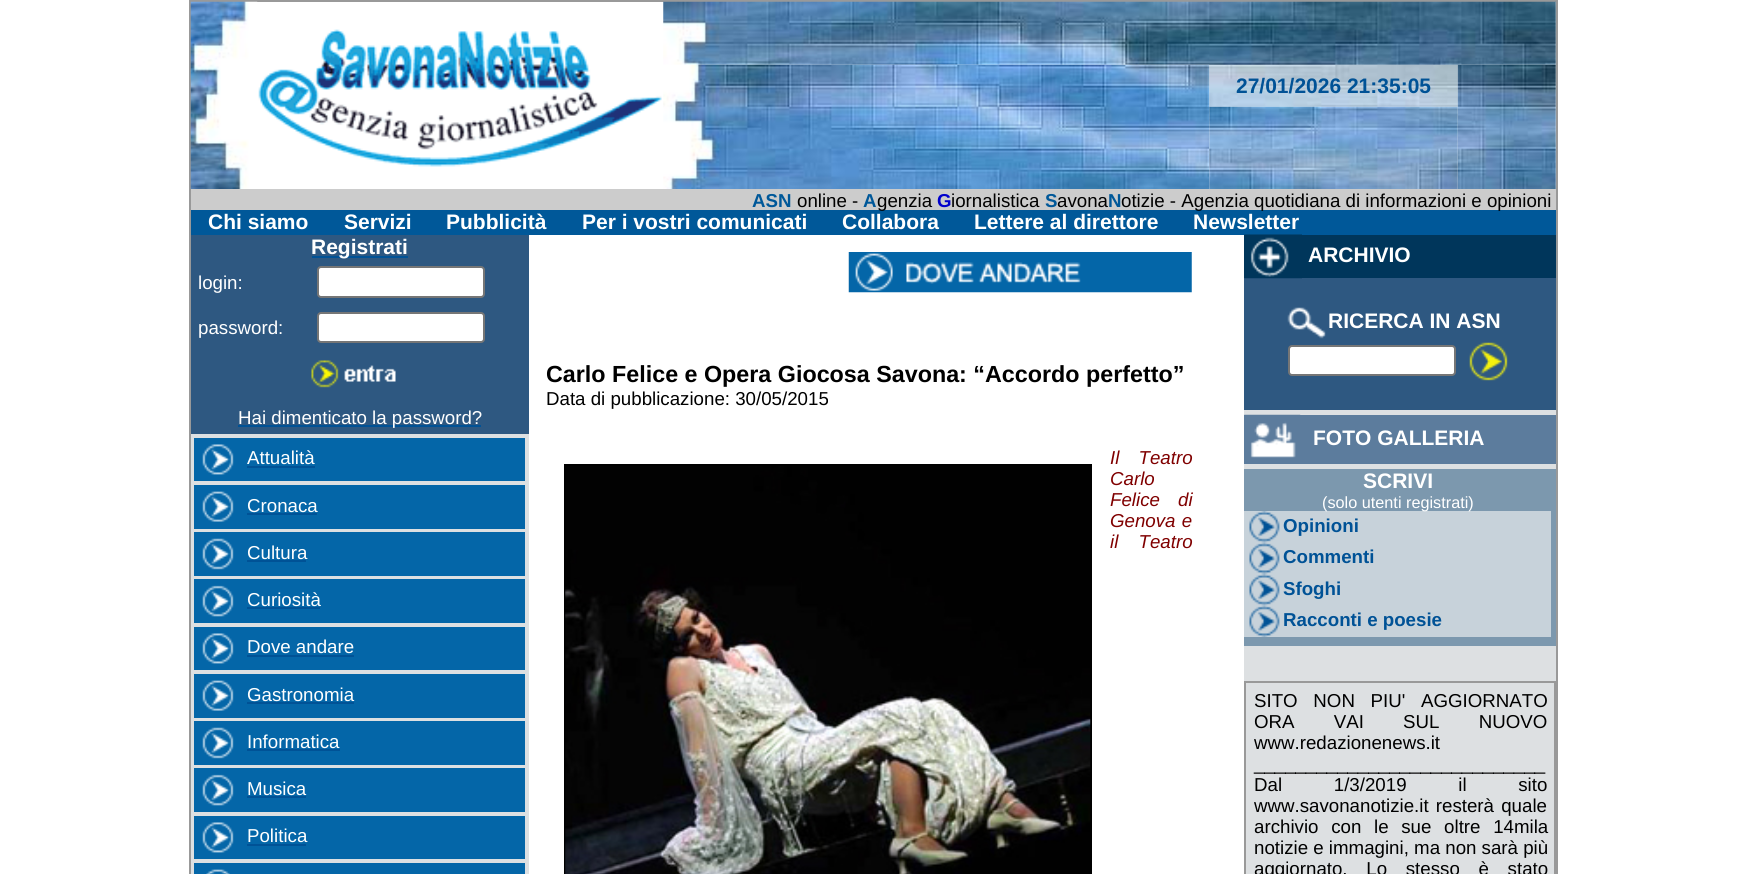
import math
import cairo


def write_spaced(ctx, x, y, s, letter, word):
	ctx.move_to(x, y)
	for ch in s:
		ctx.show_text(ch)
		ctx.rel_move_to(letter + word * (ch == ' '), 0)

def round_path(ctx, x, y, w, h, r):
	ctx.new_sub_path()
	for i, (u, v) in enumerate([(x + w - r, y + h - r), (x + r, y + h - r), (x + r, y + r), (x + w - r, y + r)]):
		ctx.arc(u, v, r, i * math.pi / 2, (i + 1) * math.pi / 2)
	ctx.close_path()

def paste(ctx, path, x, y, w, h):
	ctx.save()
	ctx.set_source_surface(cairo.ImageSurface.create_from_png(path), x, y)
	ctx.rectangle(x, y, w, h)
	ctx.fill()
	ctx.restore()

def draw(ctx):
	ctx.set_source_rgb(1, 1, 1)
	ctx.paint()
	ctx.rectangle(190, 1, 1367, 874)
	ctx.set_source_rgb(0.6, 0.6, 0.6)
	ctx.stroke()
	paste(ctx, 'media/1.png', 190, 1, 68, 188)
	paste(ctx, 'media/2.png', 258, 29, 404, 138)
	paste(ctx, 'media/5.png', 1209, 64, 249, 43)
	paste(ctx, 'media/3.png', 663, 1, 893, 64)
	paste(ctx, 'media/4.png', 663, 64, 547, 125)
	ctx.select_font_face('Liberation Sans', cairo.FONT_SLANT_NORMAL, cairo.FONT_WEIGHT_BOLD)
	ctx.set_font_size(21)
	ctx.set_source_rgb(0, 0.322, 0.588)
	ctx.move_to(1236, 93)
	ctx.show_text('27/01/2026 21:35:05')
	paste(ctx, 'media/6.png', 1457, 64, 99, 125)
	paste(ctx, 'media/7.png', 1209, 106, 249, 83)
	ctx.set_source_rgb(0.8, 0.8, 0.8)
	ctx.rectangle(191, 189, 1365, 21)
	ctx.fill()
	ctx.set_font_size(18.7)
	ctx.set_source_rgb(0, 0.345, 0.6)
	ctx.move_to(752, 207)
	ctx.show_text('ASN')
	ctx.select_font_face('Liberation Sans')
	ctx.set_source_rgb(0, 0, 0)
	ctx.move_to(797, 207)
	ctx.show_text('online -')
	ctx.select_font_face('Liberation Sans', cairo.FONT_SLANT_NORMAL, cairo.FONT_WEIGHT_BOLD)
	ctx.set_source_rgb(0, 0.345, 0.6)
	ctx.move_to(863, 207)
	ctx.show_text('A')
	ctx.rectangle(191, 210, 1365, 25)
	ctx.fill()
	ctx.select_font_face('Liberation Sans')
	ctx.set_source_rgb(0, 0, 0)
	ctx.move_to(877, 207)
	ctx.show_text('genzia')
	ctx.select_font_face('Liberation Sans', cairo.FONT_SLANT_NORMAL, cairo.FONT_WEIGHT_BOLD)
	ctx.set_source_rgb(0, 0, 0.8)
	ctx.move_to(937, 207)
	ctx.show_text('G')
	ctx.select_font_face('Liberation Sans')
	ctx.set_source_rgb(0, 0, 0)
	ctx.move_to(951, 207)
	ctx.show_text('iornalistica')
	ctx.select_font_face('Liberation Sans', cairo.FONT_SLANT_NORMAL, cairo.FONT_WEIGHT_BOLD)
	ctx.set_source_rgb(0, 0.345, 0.6)
	ctx.move_to(1045, 207)
	ctx.show_text('S')
	ctx.select_font_face('Liberation Sans')
	ctx.set_source_rgb(0, 0, 0)
	ctx.move_to(1057, 207)
	ctx.show_text('avona')
	ctx.select_font_face('Liberation Sans', cairo.FONT_SLANT_NORMAL, cairo.FONT_WEIGHT_BOLD)
	ctx.set_source_rgb(0, 0.345, 0.6)
	ctx.move_to(1108, 207)
	ctx.show_text('N')
	ctx.select_font_face('Liberation Sans')
	ctx.set_source_rgb(0, 0, 0)
	ctx.move_to(1121, 207)
	ctx.show_text('otizie - Agenzia quotidiana di informazioni e opinioni')
	ctx.select_font_face('Liberation Sans', cairo.FONT_SLANT_NORMAL, cairo.FONT_WEIGHT_BOLD)
	ctx.set_font_size(21)
	ctx.set_source_rgb(1, 1, 1)
	for x, y, s in [
		(208, 229, 'Chi siamo'),
		(344, 229, 'Servizi'),
		(446, 229, 'Pubblicità'),
		(582, 229, 'Per i vostri comunicati'),
		(842, 229, 'Collabora'),
		(974, 229, 'Lettere al direttore'),
		(1193, 229, 'Newsletter'),
	]:
		ctx.move_to(x, y)
		ctx.show_text(s)
	ctx.set_source_rgb(0.867, 0.878, 0.886)
	ctx.rectangle(191, 434, 338, 440)
	ctx.fill()
	ctx.set_source_rgb(0.18, 0.345, 0.506)
	ctx.rectangle(191, 235, 338, 199)
	ctx.fill()
	ctx.set_source_rgb(0, 0.322, 0.588)
	ctx.rectangle(312, 256, 96, 2)
	ctx.fill()
	ctx.set_source_rgb(1, 1, 1)
	ctx.move_to(311, 254)
	ctx.show_text('Registrati')
	ctx.select_font_face('Liberation Sans')
	ctx.set_font_size(18.7)
	ctx.move_to(198, 289)
	ctx.show_text('login:')
	round_path(ctx, 318, 267, 166, 30, 3)
	ctx.fill_preserve()
	ctx.set_source_rgb(0.463, 0.463, 0.463)
	ctx.stroke()
	ctx.set_source_rgb(1, 1, 1)
	ctx.move_to(198, 334)
	ctx.show_text('password:')
	round_path(ctx, 318, 313, 166, 29, 3)
	ctx.fill_preserve()
	ctx.set_source_rgb(0.463, 0.463, 0.463)
	ctx.stroke()
	paste(ctx, 'media/8.png', 311, 360, 85, 28)
	ctx.set_source_rgb(0, 0.322, 0.588)
	ctx.rectangle(238, 425, 243, 2)
	ctx.fill()
	ctx.set_source_rgb(1, 1, 1)
	ctx.move_to(238, 424)
	ctx.show_text('Hai dimenticato la password?')
	ctx.set_source_rgb(0.016, 0.4, 0.659)
	ctx.rectangle(194, 438, 331, 43)
	ctx.fill()
	paste(ctx, 'media/9.png', 202, 444, 32, 31)
	ctx.set_source_rgb(1, 1, 1)
	ctx.move_to(247, 464)
	ctx.show_text('Attualità')
	ctx.set_source_rgb(0, 0.322, 0.588)
	ctx.rectangle(247, 466, 68, 2)
	ctx.fill()
	ctx.set_source_rgb(0.016, 0.4, 0.659)
	ctx.rectangle(194, 485, 331, 44)
	ctx.fill()
	paste(ctx, 'media/10.png', 202, 491, 32, 31)
	ctx.set_source_rgb(1, 1, 1)
	ctx.move_to(247, 512)
	ctx.show_text('Cronaca')
	ctx.set_source_rgb(0, 0.322, 0.588)
	ctx.rectangle(247, 513, 70, 2)
	ctx.fill()
	ctx.set_source_rgb(0.016, 0.4, 0.659)
	ctx.rectangle(194, 532, 331, 44)
	ctx.fill()
	paste(ctx, 'media/11.png', 202, 538, 32, 32)
	ctx.set_source_rgb(1, 1, 1)
	ctx.move_to(247, 559)
	ctx.show_text('Cultura')
	ctx.set_source_rgb(0, 0.322, 0.588)
	ctx.rectangle(247, 560, 59, 2)
	ctx.fill()
	ctx.set_source_rgb(0.016, 0.4, 0.659)
	ctx.rectangle(194, 579, 331, 44)
	ctx.fill()
	paste(ctx, 'media/12.png', 202, 585, 32, 32)
	ctx.set_source_rgb(1, 1, 1)
	ctx.move_to(247, 606)
	ctx.show_text('Curiosità')
	ctx.set_source_rgb(0, 0.322, 0.588)
	ctx.rectangle(247, 607, 73, 2)
	ctx.fill()
	ctx.set_source_rgb(0.016, 0.4, 0.659)
	ctx.rectangle(194, 627, 331, 43)
	ctx.fill()
	paste(ctx, 'media/9.png', 202, 633, 32, 31)
	ctx.set_source_rgb(1, 1, 1)
	ctx.move_to(247, 653)
	ctx.show_text('Dove andare')
	ctx.set_source_rgb(0, 0.322, 0.588)
	ctx.rectangle(247, 655, 107, 2)
	ctx.fill()
	ctx.set_source_rgb(0.016, 0.4, 0.659)
	ctx.rectangle(194, 674, 331, 44)
	ctx.fill()
	paste(ctx, 'media/10.png', 202, 680, 32, 31)
	ctx.set_source_rgb(1, 1, 1)
	ctx.move_to(247, 701)
	ctx.show_text('Gastronomia')
	ctx.set_source_rgb(0, 0.322, 0.588)
	ctx.rectangle(247, 702, 107, 2)
	ctx.fill()
	ctx.set_source_rgb(0.016, 0.4, 0.659)
	ctx.rectangle(194, 721, 331, 44)
	ctx.fill()
	paste(ctx, 'media/11.png', 202, 727, 32, 32)
	ctx.set_source_rgb(1, 1, 1)
	ctx.move_to(247, 748)
	ctx.show_text('Informatica')
	ctx.set_source_rgb(0, 0.322, 0.588)
	ctx.rectangle(247, 749, 93, 2)
	ctx.fill()
	ctx.set_source_rgb(0.016, 0.4, 0.659)
	ctx.rectangle(194, 768, 331, 44)
	ctx.fill()
	paste(ctx, 'media/12.png', 202, 774, 32, 32)
	ctx.set_source_rgb(1, 1, 1)
	ctx.move_to(247, 795)
	ctx.show_text('Musica')
	ctx.set_source_rgb(0, 0.322, 0.588)
	ctx.rectangle(247, 796, 59, 2)
	ctx.fill()
	ctx.set_source_rgb(0.016, 0.4, 0.659)
	ctx.rectangle(194, 816, 331, 43)
	ctx.fill()
	paste(ctx, 'media/9.png', 202, 822, 32, 31)
	ctx.set_source_rgb(1, 1, 1)
	ctx.move_to(247, 842)
	ctx.show_text('Politica')
	ctx.set_source_rgb(0, 0.322, 0.588)
	ctx.rectangle(247, 844, 59, 2)
	ctx.fill()
	ctx.set_source_rgb(0.016, 0.4, 0.659)
	ctx.rectangle(194, 863, 331, 11)
	ctx.fill()
	paste(ctx, 'media/13.png', 206, 869, 24, 5)
	paste(ctx, 'media/14.png', 848, 252, 344, 41)
	ctx.select_font_face('Liberation Sans', cairo.FONT_SLANT_NORMAL, cairo.FONT_WEIGHT_BOLD)
	ctx.set_font_size(23.3)
	ctx.set_source_rgb(0, 0, 0)
	ctx.move_to(546, 382)
	ctx.show_text('Carlo Felice e Opera Giocosa Savona: “Accordo perfetto”')
	ctx.select_font_face('Liberation Sans')
	ctx.set_font_size(18.7)
	ctx.move_to(546, 405)
	ctx.show_text('Data di pubblicazione: 30/05/2015')
	ctx.select_font_face('Liberation Sans', cairo.FONT_SLANT_ITALIC)
	ctx.set_source_rgb(0.502, 0, 0)
	write_spaced(ctx, 1110, 464, 'Il Teatro', 0, 14)
	ctx.rectangle(565, 465, 526, 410)
	ctx.set_source_rgb(0, 0, 0)
	ctx.stroke()
	paste(ctx, 'media/15.png', 565, 466, 526, 408)
	ctx.set_source_rgb(0.502, 0, 0)
	ctx.move_to(1110, 485)
	ctx.show_text('Carlo')
	write_spaced(ctx, 1110, 506, 'Felice di', 0, 13)
	write_spaced(ctx, 1110, 527, 'Genova e', 0, 1)
	write_spaced(ctx, 1110, 548, 'il Teatro', 0, 15)
	ctx.set_source_rgb(0.867, 0.878, 0.886)
	ctx.rectangle(1244, 410, 312, 464)
	ctx.fill()
	ctx.set_source_rgb(0, 0.212, 0.357)
	ctx.rectangle(1244, 235, 312, 43)
	ctx.fill()
	ctx.set_source_rgb(0.18, 0.345, 0.506)
	ctx.rectangle(1244, 278, 312, 132)
	ctx.fill()
	paste(ctx, 'media/16.png', 1244, 234, 58, 45)
	ctx.select_font_face('Liberation Sans', cairo.FONT_SLANT_NORMAL, cairo.FONT_WEIGHT_BOLD)
	ctx.set_font_size(21)
	ctx.set_source_rgb(1, 1, 1)
	ctx.move_to(1308, 262)
	ctx.show_text('ARCHIVIO')
	paste(ctx, 'media/17.png', 1287, 307, 39, 32)
	ctx.move_to(1328, 328)
	ctx.show_text('RICERCA IN ASN')
	round_path(ctx, 1289, 346, 166, 29, 3)
	ctx.fill_preserve()
	ctx.set_source_rgb(0.463, 0.463, 0.463)
	ctx.stroke()
	paste(ctx, 'media/18.png', 1469, 342, 39, 39)
	ctx.set_source_rgb(0.361, 0.486, 0.616)
	ctx.rectangle(1244, 415, 312, 49)
	ctx.fill()
	paste(ctx, 'media/19.png', 1244, 414, 57, 44)
	ctx.set_source_rgb(1, 1, 1)
	ctx.move_to(1313, 445)
	ctx.show_text('FOTO GALLERIA')
	ctx.set_source_rgb(0.486, 0.596, 0.682)
	ctx.rectangle(1551, 469, 5, 177)
	ctx.fill()
	ctx.set_source_rgb(0.78, 0.824, 0.855)
	ctx.rectangle(1244, 511, 307, 126)
	ctx.fill()
	ctx.set_source_rgb(0.486, 0.596, 0.682)
	ctx.rectangle(1244, 469, 307, 42)
	ctx.fill()
	ctx.set_source_rgb(1, 1, 1)
	ctx.move_to(1363, 488)
	ctx.show_text('SCRIVI')
	ctx.select_font_face('Liberation Sans')
	ctx.set_font_size(16.25)
	ctx.move_to(1322, 508)
	ctx.show_text('(solo utenti registrati)')
	paste(ctx, 'media/20.png', 1249, 511, 31, 32)
	ctx.select_font_face('Liberation Sans', cairo.FONT_SLANT_NORMAL, cairo.FONT_WEIGHT_BOLD)
	ctx.set_font_size(18.7)
	ctx.set_source_rgb(0, 0.322, 0.588)
	ctx.move_to(1283, 532)
	ctx.show_text('Opinioni')
	paste(ctx, 'media/21.png', 1249, 542, 31, 32)
	ctx.move_to(1283, 563)
	ctx.show_text('Commenti')
	paste(ctx, 'media/20.png', 1249, 574, 31, 32)
	ctx.move_to(1283, 595)
	ctx.show_text('Sfoghi')
	paste(ctx, 'media/21.png', 1249, 605, 31, 32)
	ctx.move_to(1283, 626)
	ctx.show_text('Racconti e poesie')
	ctx.set_source_rgb(0.486, 0.596, 0.682)
	ctx.rectangle(1244, 637, 307, 9)
	ctx.fill()
	ctx.rectangle(1245, 682, 310, 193)
	ctx.set_source_rgb(0.6, 0.6, 0.6)
	ctx.stroke()
	ctx.select_font_face('Liberation Sans')
	ctx.set_source_rgb(0, 0, 0)
	write_spaced(ctx, 1254, 707, 'SITO NON PIU\' AGGIORNATO', 0, 10.5)
	write_spaced(ctx, 1254, 728, 'ORA VAI SUL NUOVO', 0, 34)
	ctx.move_to(1254, 749)
	ctx.show_text('www.redazionenews.it')
	ctx.move_to(1254, 770)
	ctx.show_text('____________________________')
	write_spaced(ctx, 1254, 791, 'Dal 1/3/2019 il sito', 0, 46.5)
	write_spaced(ctx, 1254, 812, 'www.savonanotizie.it resterà quale', 0, 2)
	write_spaced(ctx, 1254, 833, 'archivio con le sue oltre 14mila', 0, 7.5)
	ctx.move_to(1254, 854)
	ctx.show_text('notizie e immagini, ma non sarà più')
	write_spaced(ctx, 1254, 875, 'aggiornato. Lo stesso è stato', 0, 13.5)


surface = cairo.ImageSurface(cairo.FORMAT_RGB24, 1745, 874)
ctx = cairo.Context(surface)
options = cairo.FontOptions()
options.set_hint_metrics(cairo.HINT_METRICS_OFF)
options.set_hint_style(cairo.HINT_STYLE_NONE)
ctx.set_font_options(options)
ctx.set_miter_limit(4)
draw(ctx)
surface.write_to_png('image.png')
